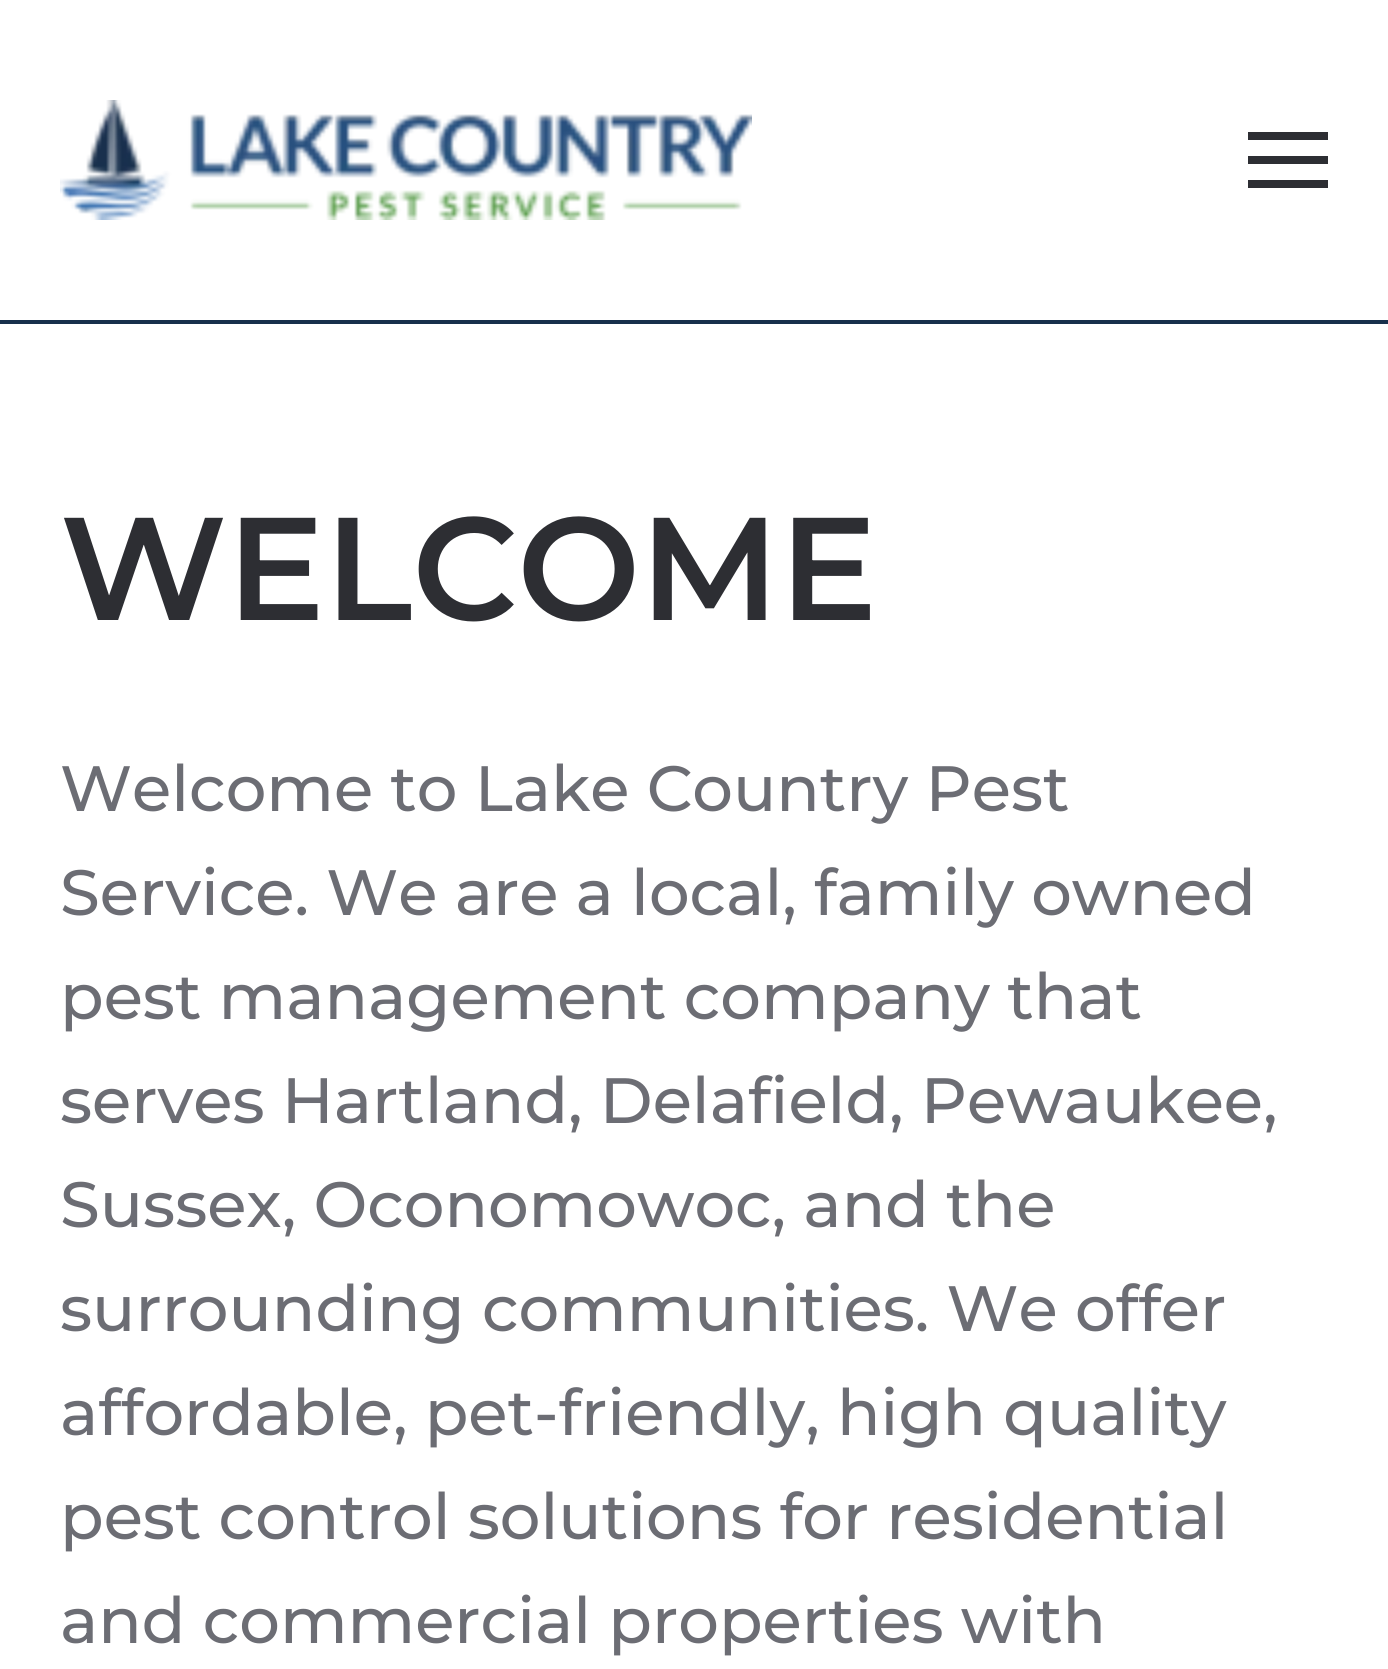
import math
import cairo


def paste(ctx, path, x, y, w, h):
	ctx.save()
	ctx.set_source_surface(cairo.ImageSurface.create_from_png(path), x, y)
	ctx.rectangle(x, y, w, h)
	ctx.fill()
	ctx.restore()

def draw(ctx):
	ctx.set_source_rgb(1, 1, 1)
	ctx.paint()
	ctx.set_source_rgb(0.094, 0.188, 0.298)
	ctx.rectangle(0, 320, 1388, 4)
	ctx.fill()
	paste(ctx, 'media/1.png', 60, 100, 692, 120)
	ctx.set_source_rgb(0.176, 0.18, 0.2)
	ctx.rectangle(1248, 132, 80, 8)
	ctx.rectangle(1248, 156, 80, 8)
	ctx.rectangle(1248, 180, 80, 8)
	ctx.fill()
	ctx.select_font_face('Montserrat Thin')
	ctx.set_font_size(146)
	ctx.move_to(60, 620)
	ctx.show_text('WELCOME')
	ctx.select_font_face('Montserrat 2 Thin')
	ctx.set_font_size(64)
	ctx.set_source_rgb(0.424, 0.427, 0.455)
	for x, y, s in [
		(60, 811, 'Welcome to Lake Country Pest'),
		(60, 915, 'Service. We are a local, family owned'),
		(60, 1019, 'pest management company that'),
		(60, 1123, 'serves Hartland, Delafield, Pewaukee,'),
		(60, 1227, 'Sussex, Oconomowoc, and the'),
		(60, 1331, 'surrounding communities. We offer'),
		(60, 1435, 'affordable, pet-friendly, high quality'),
		(60, 1539, 'pest control solutions for residential'),
		(60, 1643, 'and commercial properties with'),
	]:
		ctx.move_to(x, y)
		ctx.show_text(s)


surface = cairo.ImageSurface(cairo.FORMAT_RGB24, 1388, 1669)
ctx = cairo.Context(surface)
options = cairo.FontOptions()
options.set_hint_metrics(cairo.HINT_METRICS_OFF)
options.set_hint_style(cairo.HINT_STYLE_NONE)
ctx.set_font_options(options)
ctx.set_miter_limit(4)
draw(ctx)
surface.write_to_png('image.png')
